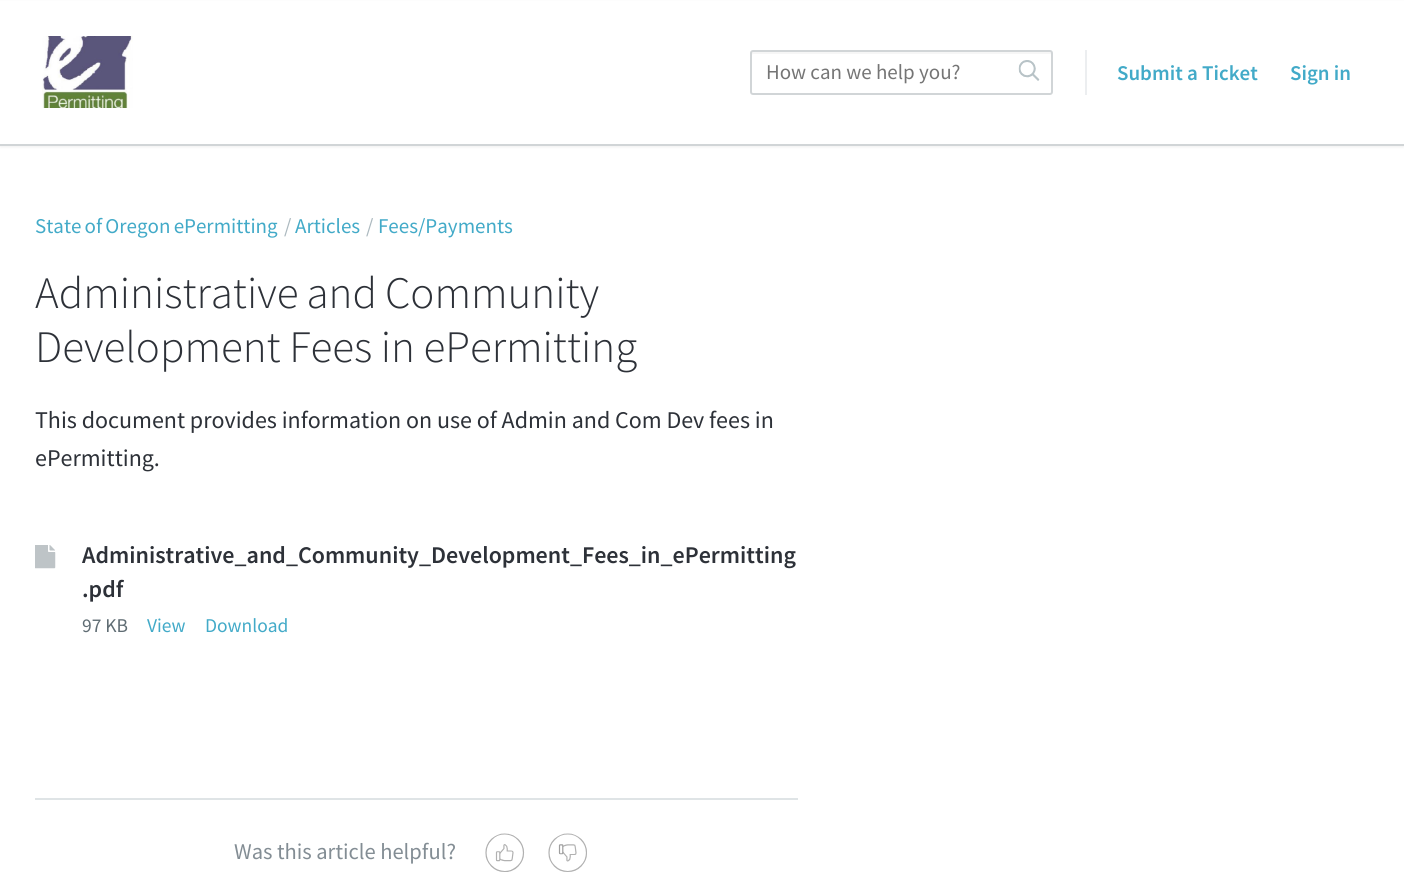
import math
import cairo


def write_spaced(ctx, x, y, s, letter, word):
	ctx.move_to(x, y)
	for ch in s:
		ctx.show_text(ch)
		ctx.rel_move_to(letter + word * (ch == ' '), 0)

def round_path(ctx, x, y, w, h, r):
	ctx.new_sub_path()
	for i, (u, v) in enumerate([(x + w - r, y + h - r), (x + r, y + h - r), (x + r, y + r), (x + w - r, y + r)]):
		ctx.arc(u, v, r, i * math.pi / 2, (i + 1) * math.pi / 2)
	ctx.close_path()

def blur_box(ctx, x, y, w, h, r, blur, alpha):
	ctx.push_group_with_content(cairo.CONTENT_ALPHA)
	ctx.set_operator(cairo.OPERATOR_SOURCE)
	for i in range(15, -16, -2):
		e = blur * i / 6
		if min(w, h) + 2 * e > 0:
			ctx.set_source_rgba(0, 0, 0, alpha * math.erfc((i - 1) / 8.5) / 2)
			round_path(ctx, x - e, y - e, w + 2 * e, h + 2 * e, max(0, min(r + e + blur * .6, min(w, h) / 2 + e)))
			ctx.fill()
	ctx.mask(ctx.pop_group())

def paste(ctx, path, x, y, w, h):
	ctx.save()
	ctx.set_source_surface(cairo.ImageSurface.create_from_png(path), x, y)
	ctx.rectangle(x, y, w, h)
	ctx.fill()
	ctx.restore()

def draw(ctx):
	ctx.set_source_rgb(1, 1, 1)
	ctx.paint()
	ctx.set_source_rgb(0, 0, 0)
	blur_box(ctx, 0, 2, 1404, 145, 0, 1.5, 0.06)
	ctx.set_source_rgb(1, 1, 1)
	ctx.rectangle(0, 1, 1404, 143)
	ctx.fill()
	ctx.set_source_rgb(0.82, 0.835, 0.843)
	ctx.rectangle(0, 144, 1404, 2)
	ctx.fill()
	paste(ctx, 'media/1.png', 42, 36, 91, 72)
	ctx.set_source_rgb(0.922, 0.933, 0.941)
	ctx.rectangle(1085, 50, 2, 45)
	ctx.fill()
	ctx.set_source_rgb(0.961, 0.961, 0.961)
	ctx.new_path()
	ctx.move_to(753, 54)
	ctx.line_to(1050, 54)
	ctx.curve_to(1051, 54, 1052, 55, 1052, 56)
	ctx.curve_to(1052, 55, 1053, 51, 1050, 51)
	ctx.line_to(754, 51)
	ctx.curve_to(751, 51, 752, 55, 752, 56)
	ctx.curve_to(752, 55, 752, 54, 753, 54)
	ctx.close_path()
	ctx.fill()
	round_path(ctx, 751, 51, 301, 43, 2)
	ctx.set_source_rgb(0.82, 0.835, 0.843)
	ctx.stroke()
	ctx.select_font_face('Source Sans Pro')
	ctx.set_font_size(21)
	ctx.set_source_rgb(0.459, 0.459, 0.459)
	ctx.move_to(766, 79)
	ctx.show_text('How can we help you?')
	paste(ctx, 'media/2.png', 1018, 60, 22, 21)
	ctx.select_font_face('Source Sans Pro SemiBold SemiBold')
	ctx.set_source_rgb(0.259, 0.667, 0.784)
	ctx.move_to(1117, 80)
	ctx.show_text('Submit a Ticket')
	ctx.move_to(1290, 80)
	ctx.show_text('Sign in')
	ctx.select_font_face('Source Sans Pro')
	write_spaced(ctx, 35, 233, 'State of Oregon ePermitting', 0, -1)
	ctx.set_source_rgb(0.675, 0.725, 0.749)
	ctx.move_to(284, 233)
	ctx.show_text('/')
	ctx.set_source_rgb(0.259, 0.667, 0.784)
	ctx.move_to(295, 233)
	ctx.show_text('Articles')
	ctx.set_source_rgb(0.675, 0.725, 0.749)
	ctx.move_to(366, 233)
	ctx.show_text('/')
	ctx.set_source_rgb(0.259, 0.667, 0.784)
	ctx.move_to(378, 233)
	ctx.show_text('Fees/Payments')
	ctx.select_font_face('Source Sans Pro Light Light')
	ctx.set_font_size(45)
	ctx.set_source_rgb(0.176, 0.192, 0.22)
	write_spaced(ctx, 35, 308, 'Administrative and Community', 0, -1)
	write_spaced(ctx, 35, 362, 'Development Fees in ePermitting', 0, -0.5)
	ctx.select_font_face('Source Sans Pro')
	ctx.set_font_size(24)
	ctx.move_to(35, 428)
	ctx.show_text('This document provides information on use of Admin and Com Dev fees in')
	ctx.move_to(35, 466)
	ctx.show_text('ePermitting.')
	paste(ctx, 'media/3.png', 35, 545, 21, 24)
	ctx.select_font_face('Source Sans Pro SemiBold SemiBold')
	ctx.move_to(82, 563)
	ctx.show_text('Administrative_and_Community_Development_Fees_in_ePermitting')
	ctx.move_to(82, 597)
	ctx.show_text('.pdf')
	ctx.select_font_face('Source Sans Pro')
	ctx.set_font_size(19.5)
	ctx.set_source_rgb(0.373, 0.424, 0.451)
	ctx.move_to(82, 632)
	ctx.show_text('97 KB')
	ctx.set_source_rgb(0.259, 0.667, 0.784)
	ctx.move_to(147, 632)
	ctx.show_text('View')
	ctx.move_to(205, 632)
	ctx.show_text('Download')
	ctx.set_source_rgb(0.875, 0.894, 0.902)
	ctx.rectangle(35, 798, 763, 2)
	ctx.fill()
	ctx.set_font_size(22.5)
	ctx.set_source_rgb(0.514, 0.553, 0.58)
	ctx.move_to(234, 859)
	ctx.show_text('Was this article helpful?')
	paste(ctx, 'media/4.png', 485, 833, 40, 39)
	paste(ctx, 'media/5.png', 548, 833, 39, 39)


surface = cairo.ImageSurface(cairo.FORMAT_RGB24, 1404, 881)
ctx = cairo.Context(surface)
options = cairo.FontOptions()
options.set_hint_metrics(cairo.HINT_METRICS_OFF)
options.set_hint_style(cairo.HINT_STYLE_NONE)
ctx.set_font_options(options)
ctx.set_miter_limit(4)
draw(ctx)
surface.write_to_png('image.png')
